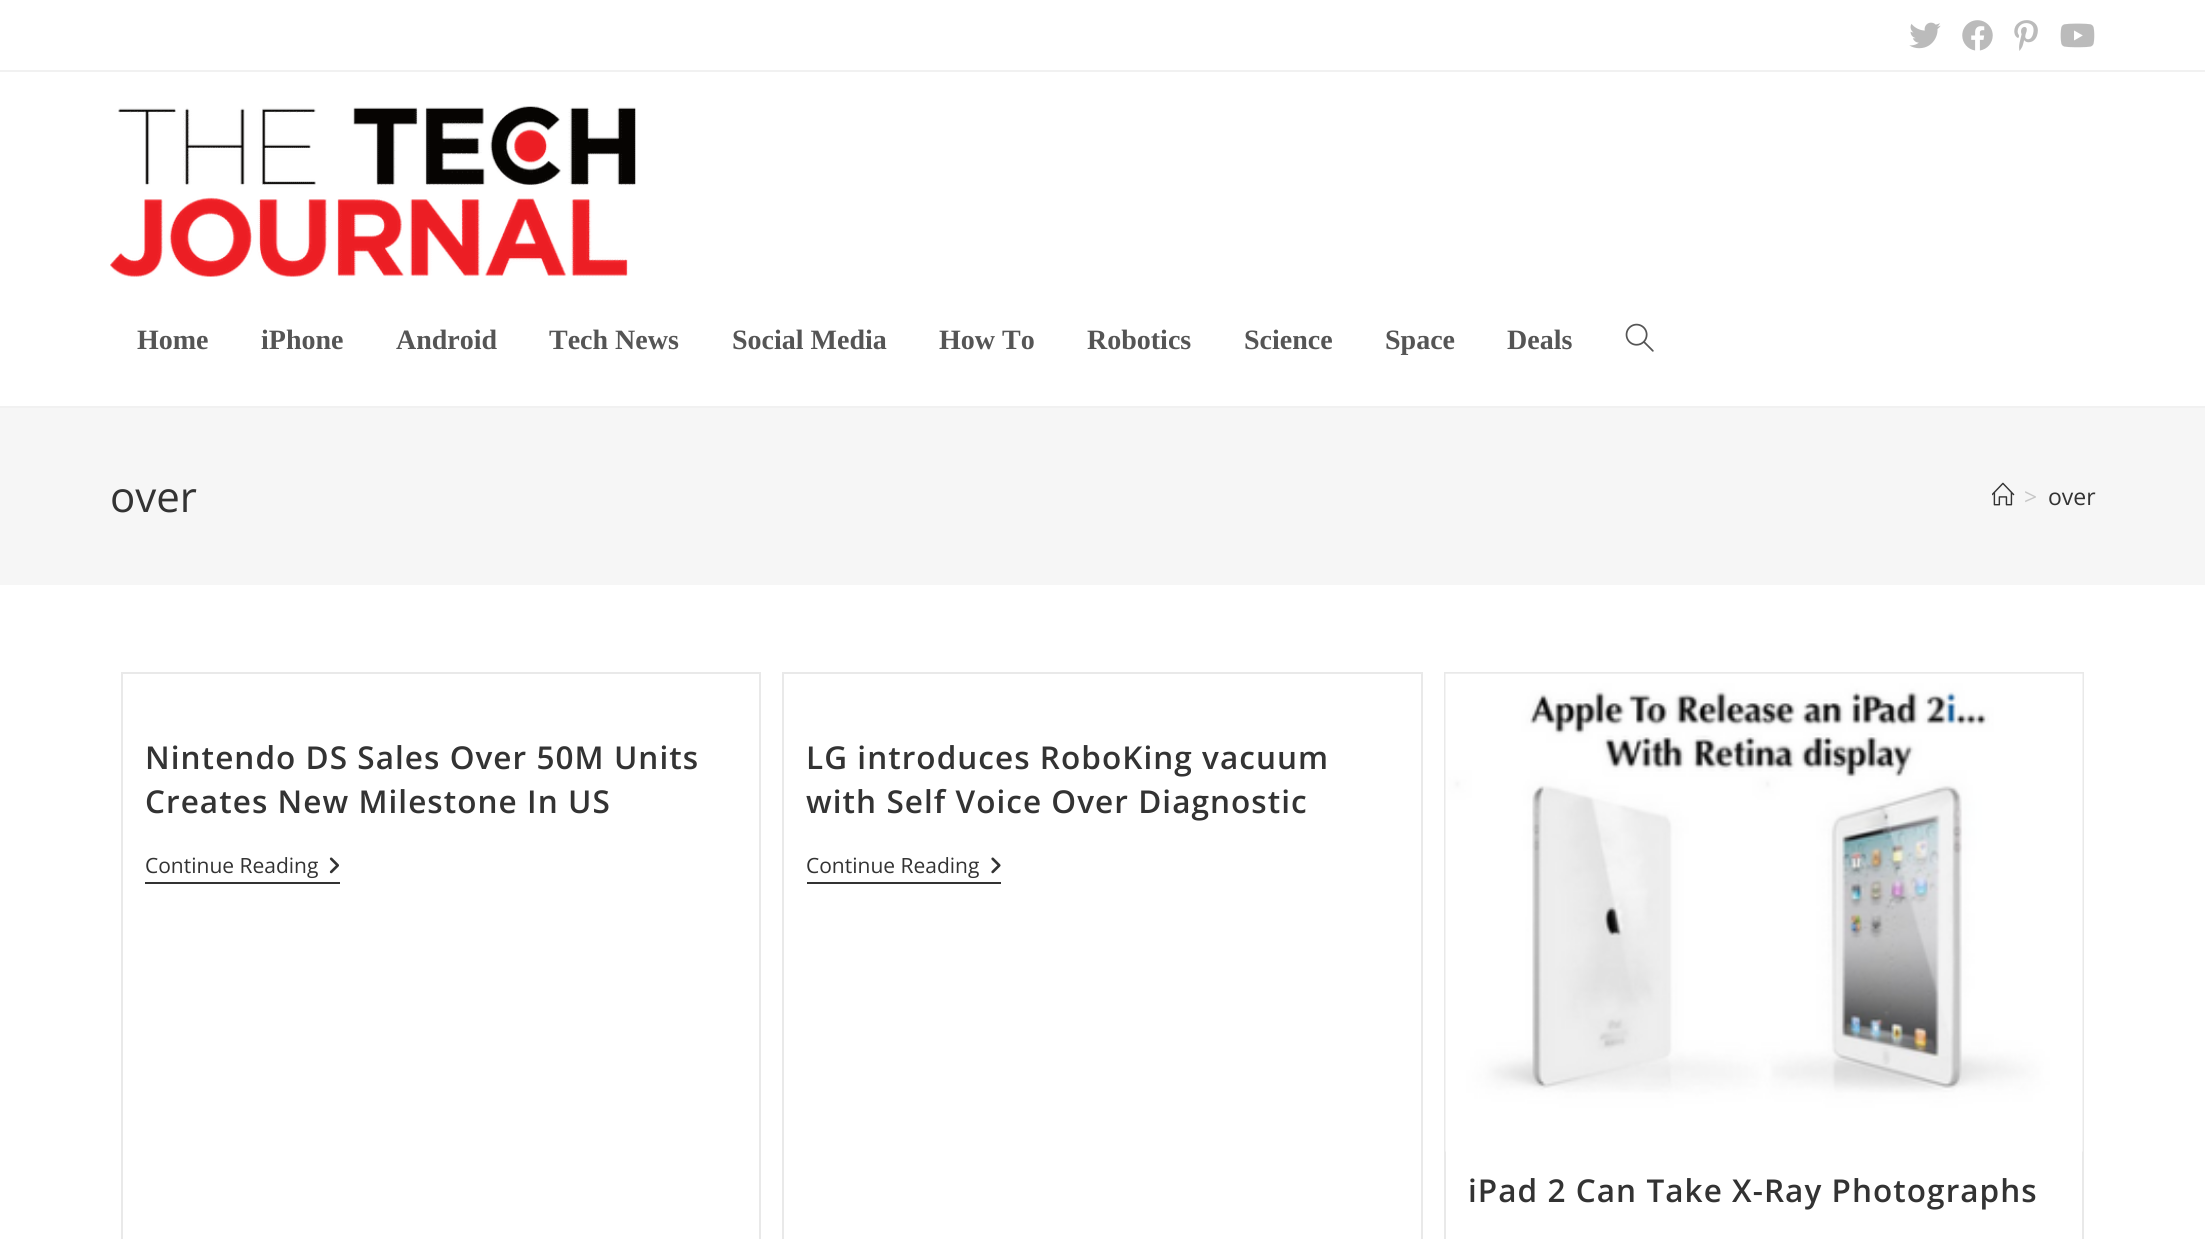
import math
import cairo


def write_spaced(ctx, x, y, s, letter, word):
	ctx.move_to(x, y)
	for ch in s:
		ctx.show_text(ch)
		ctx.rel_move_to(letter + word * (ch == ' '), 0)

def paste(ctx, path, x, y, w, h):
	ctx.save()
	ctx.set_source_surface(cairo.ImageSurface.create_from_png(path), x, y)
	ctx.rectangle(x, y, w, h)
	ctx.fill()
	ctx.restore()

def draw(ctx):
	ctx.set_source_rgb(1, 1, 1)
	ctx.paint()
	ctx.set_source_rgb(0.945, 0.945, 0.945)
	ctx.rectangle(0, 70, 2205, 2)
	ctx.fill()
	paste(ctx, 'media/1.png', 1909, 22, 32, 27)
	paste(ctx, 'media/2.png', 1962, 20, 31, 31)
	paste(ctx, 'media/3.png', 2014, 20, 24, 31)
	paste(ctx, 'media/4.png', 2060, 23, 35, 25)
	ctx.rectangle(0, 406, 2205, 2)
	ctx.fill()
	paste(ctx, 'media/5.png', 110, 106, 526, 171)
	ctx.select_font_face('Liberation Serif', cairo.FONT_SLANT_NORMAL, cairo.FONT_WEIGHT_BOLD)
	ctx.set_font_size(28)
	ctx.set_source_rgb(0.333, 0.333, 0.333)
	for x, y, s in [
		(137, 349, 'Home'),
		(261, 349, 'iPhone'),
		(396, 349, 'Android'),
		(549, 349, 'Tech News'),
		(732, 349, 'Social Media'),
		(939, 349, 'How To'),
		(1087, 349, 'Robotics'),
		(1244, 349, 'Science'),
		(1385, 349, 'Space'),
		(1507, 349, 'Deals'),
	]:
		ctx.move_to(x, y)
		ctx.show_text(s)
	paste(ctx, 'media/6.png', 1625, 323, 29, 29)
	ctx.set_source_rgb(0.961, 0.961, 0.961)
	ctx.rectangle(0, 408, 2205, 177)
	ctx.fill()
	ctx.select_font_face('Open Sans')
	ctx.set_font_size(42)
	ctx.set_source_rgb(0.2, 0.2, 0.2)
	ctx.move_to(110, 512)
	ctx.show_text('over')
	paste(ctx, 'media/7.png', 1992, 482, 23, 24)
	ctx.set_font_size(23)
	ctx.set_source_rgb(0.776, 0.776, 0.776)
	ctx.move_to(2024, 505)
	ctx.show_text('>')
	ctx.set_source_rgb(0.2, 0.2, 0.2)
	ctx.move_to(2048, 505)
	ctx.show_text('over')
	ctx.rectangle(122, 673, 638, 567)
	ctx.set_source_rgb(0.914, 0.914, 0.914)
	ctx.stroke()
	ctx.select_font_face('Open Sans SemiBold')
	ctx.set_font_size(31.5)
	ctx.set_source_rgb(0.2, 0.2, 0.2)
	write_spaced(ctx, 145, 769, 'Nintendo DS Sales Over 50M Units', 1.05, 0)
	write_spaced(ctx, 145, 813, 'Creates New Milestone In US', 1.05, 0)
	ctx.rectangle(145, 882, 195, 2)
	ctx.fill()
	ctx.select_font_face('Open Sans')
	ctx.set_font_size(21)
	ctx.move_to(145, 873)
	ctx.show_text('Continue Reading')
	paste(ctx, 'media/8.png', 329, 857, 10, 17)
	ctx.rectangle(783, 673, 639, 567)
	ctx.set_source_rgb(0.914, 0.914, 0.914)
	ctx.stroke()
	ctx.select_font_face('Open Sans SemiBold')
	ctx.set_font_size(31.5)
	ctx.set_source_rgb(0.2, 0.2, 0.2)
	write_spaced(ctx, 806, 769, 'LG introduces RoboKing vacuum', 1.05, 0)
	write_spaced(ctx, 806, 813, 'with Self Voice Over Diagnostic', 1.05, 0)
	ctx.rectangle(807, 882, 194, 2)
	ctx.fill()
	ctx.select_font_face('Open Sans')
	ctx.set_font_size(21)
	ctx.move_to(806, 873)
	ctx.show_text('Continue Reading')
	paste(ctx, 'media/9.png', 991, 857, 10, 17)
	ctx.rectangle(1445, 673, 638, 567)
	ctx.set_source_rgb(0.914, 0.914, 0.914)
	ctx.stroke()
	paste(ctx, 'media/10.png', 1445, 673, 638, 479)
	ctx.select_font_face('Open Sans SemiBold')
	ctx.set_font_size(31.5)
	ctx.set_source_rgb(0.2, 0.2, 0.2)
	write_spaced(ctx, 1468, 1202, 'iPad 2 Can Take X-Ray Photographs', 1.05, 0)


surface = cairo.ImageSurface(cairo.FORMAT_RGB24, 2205, 1239)
ctx = cairo.Context(surface)
options = cairo.FontOptions()
options.set_hint_metrics(cairo.HINT_METRICS_OFF)
options.set_hint_style(cairo.HINT_STYLE_NONE)
ctx.set_font_options(options)
ctx.set_miter_limit(4)
draw(ctx)
surface.write_to_png('image.png')
